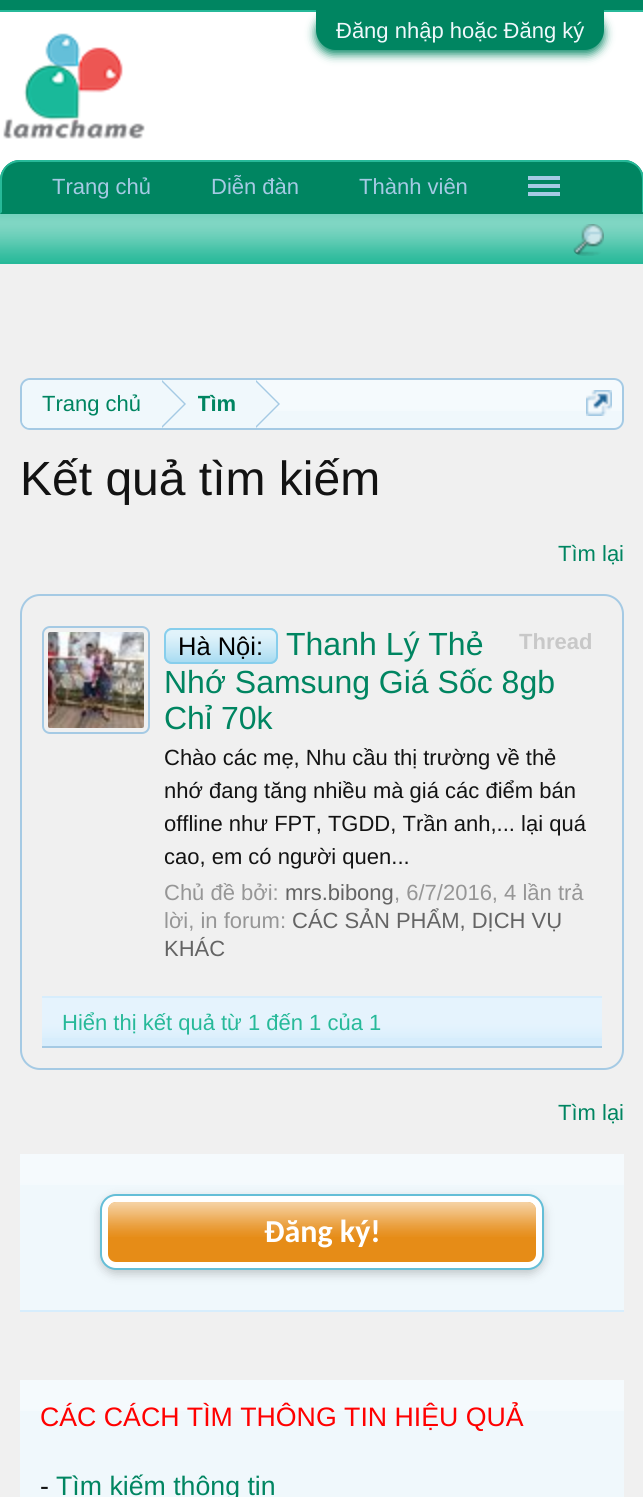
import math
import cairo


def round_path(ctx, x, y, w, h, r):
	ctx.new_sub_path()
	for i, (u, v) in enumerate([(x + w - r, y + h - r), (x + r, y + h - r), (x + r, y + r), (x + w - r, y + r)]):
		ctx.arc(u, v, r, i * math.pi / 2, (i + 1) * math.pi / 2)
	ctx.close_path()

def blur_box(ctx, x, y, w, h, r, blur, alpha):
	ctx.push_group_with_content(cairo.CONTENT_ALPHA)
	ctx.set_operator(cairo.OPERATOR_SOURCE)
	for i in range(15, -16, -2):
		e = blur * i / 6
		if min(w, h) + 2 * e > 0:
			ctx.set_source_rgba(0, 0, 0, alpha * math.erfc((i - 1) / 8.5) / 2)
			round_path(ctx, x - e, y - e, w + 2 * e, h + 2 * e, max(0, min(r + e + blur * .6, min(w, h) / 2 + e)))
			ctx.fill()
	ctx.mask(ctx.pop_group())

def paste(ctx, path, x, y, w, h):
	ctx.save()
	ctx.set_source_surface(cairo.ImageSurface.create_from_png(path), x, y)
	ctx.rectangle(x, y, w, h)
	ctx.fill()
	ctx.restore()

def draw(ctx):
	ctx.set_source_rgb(1, 1, 1)
	ctx.paint()
	ctx.set_source_rgb(0, 0.522, 0.38)
	ctx.rectangle(0, 0, 643, 10)
	ctx.fill()
	ctx.set_source_rgb(0.153, 0.725, 0.6)
	ctx.rectangle(0, 10, 643, 2)
	ctx.fill()
	ctx.set_source_rgb(0, 0.522, 0.38)
	blur_box(ctx, 316, 14, 288, 40, 20, 5, 1)
	ctx.set_source_rgb(0, 0.522, 0.38)
	ctx.new_path()
	ctx.move_to(316, 10)
	ctx.line_to(604, 10)
	ctx.line_to(604, 30)
	ctx.curve_to(604, 41, 595, 50, 584, 50)
	ctx.line_to(336, 50)
	ctx.curve_to(325, 50, 316, 41, 316, 30)
	ctx.close_path()
	ctx.fill()
	ctx.select_font_face('Liberation Sans')
	ctx.set_font_size(22)
	ctx.set_source_rgb(0.941, 0.969, 0.988)
	ctx.move_to(336, 38)
	ctx.show_text('Đăng nhập hoặc Đăng ký')
	paste(ctx, 'media/1.png', 3, 33, 142, 106)
	ctx.set_source_rgb(0, 0.522, 0.38)
	ctx.new_path()
	ctx.move_to(20, 160)
	ctx.line_to(624, 160)
	ctx.curve_to(635, 160, 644, 169, 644, 180)
	ctx.line_to(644, 214)
	ctx.line_to(0, 214)
	ctx.line_to(0, 180)
	ctx.curve_to(0, 169, 9, 160, 20, 160)
	ctx.close_path()
	ctx.fill()
	ctx.set_source_rgb(0.153, 0.725, 0.6)
	ctx.new_path()
	ctx.move_to(20, 160)
	ctx.curve_to(14, 160, 10, 162, 6, 166)
	ctx.line_to(7, 167)
	ctx.curve_to(10, 164, 15, 162, 20, 162)
	ctx.line_to(624, 162)
	ctx.curve_to(629, 162, 634, 164, 637, 167)
	ctx.line_to(638, 166)
	ctx.curve_to(634, 162, 630, 160, 624, 160)
	ctx.close_path()
	ctx.fill()
	ctx.new_path()
	ctx.move_to(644, 214)
	ctx.line_to(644, 180)
	ctx.curve_to(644, 174, 642, 170, 638, 166)
	ctx.line_to(637, 167)
	ctx.curve_to(640, 170, 642, 175, 642, 180)
	ctx.line_to(642, 212)
	ctx.close_path()
	ctx.fill()
	ctx.set_source_rgb(0, 0.522, 0.38)
	ctx.new_path()
	ctx.move_to(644, 214)
	ctx.line_to(642, 212)
	ctx.line_to(2, 212)
	ctx.line_to(0, 214)
	ctx.close_path()
	ctx.fill()
	ctx.set_source_rgb(0.153, 0.725, 0.6)
	ctx.new_path()
	ctx.move_to(0, 214)
	ctx.line_to(2, 212)
	ctx.line_to(2, 180)
	ctx.curve_to(2, 175, 4, 170, 7, 167)
	ctx.line_to(6, 166)
	ctx.curve_to(2, 170, 0, 174, 0, 180)
	ctx.close_path()
	ctx.fill()
	ctx.set_source_rgb(0.647, 0.792, 0.894)
	for x, y, s in [
		(52, 194, 'Trang chủ'),
		(211, 194, 'Diễn đàn'),
		(359, 194, 'Thành viên'),
	]:
		ctx.move_to(x, y)
		ctx.show_text(s)
	ctx.rectangle(528, 176, 32, 4)
	ctx.rectangle(528, 184, 32, 4)
	ctx.rectangle(528, 192, 32, 4)
	ctx.fill()
	ctx.set_source_rgb(0.153, 0.725, 0.6)
	ctx.rectangle(0, 214, 643, 50)
	ctx.fill()
	paste(ctx, 'media/2.png', 0, 214, 643, 48)
	paste(ctx, 'media/3.png', 573, 224, 31, 32)
	ctx.set_source_rgb(0.941, 0.941, 0.941)
	ctx.rectangle(0, 264, 643, 1233)
	ctx.fill()
	ctx.set_source_rgb(0.941, 0.969, 0.988)
	round_path(ctx, 20, 378, 604, 52, 10)
	ctx.fill()
	paste(ctx, 'media/4.png', 20, 380, 604, 31)
	round_path(ctx, 21, 379, 602, 50, 9)
	ctx.set_source_rgb(0.647, 0.792, 0.894)
	ctx.stroke()
	ctx.save()
	round_path(ctx, 22, 380, 600, 48, 8)
	ctx.clip()
	ctx.set_source_rgb(0.941, 0.969, 0.988)
	ctx.new_path()
	ctx.move_to(32, 380)
	ctx.line_to(162, 380)
	ctx.line_to(162, 430)
	ctx.line_to(32, 430)
	ctx.curve_to(26.5, 430, 22, 425.5, 22, 420)
	ctx.line_to(22, 390)
	ctx.curve_to(22, 384.5, 26.5, 380, 32, 380)
	ctx.close_path()
	ctx.fill()
	ctx.restore()
	ctx.set_source_rgb(0, 0.522, 0.38)
	ctx.move_to(42, 411)
	ctx.show_text('Trang chủ')
	ctx.set_source_rgb(0.941, 0.969, 0.988)
	ctx.rectangle(162, 380, 94, 31)
	ctx.fill()
	ctx.set_source_rgb(0.647, 0.792, 0.894)
	ctx.new_path()
	ctx.move_to(162, 428)
	ctx.line_to(162, 380)
	ctx.line_to(186, 404)
	ctx.close_path()
	ctx.fill()
	ctx.set_source_rgb(0.941, 0.969, 0.988)
	ctx.new_path()
	ctx.move_to(160, 428)
	ctx.line_to(160, 380)
	ctx.line_to(184, 404)
	ctx.close_path()
	ctx.fill()
	ctx.save()
	ctx.rectangle(198, 380, 38, 48)
	ctx.clip()
	ctx.select_font_face('Liberation Sans', cairo.FONT_SLANT_NORMAL, cairo.FONT_WEIGHT_BOLD)
	ctx.set_source_rgb(0, 0.522, 0.38)
	ctx.move_to(197, 411)
	ctx.show_text('Tìm')
	ctx.restore()
	ctx.set_source_rgb(0.647, 0.792, 0.894)
	ctx.new_path()
	ctx.move_to(256, 428)
	ctx.line_to(256, 380)
	ctx.line_to(280, 404)
	ctx.close_path()
	ctx.fill()
	ctx.set_source_rgb(0.941, 0.969, 0.988)
	ctx.new_path()
	ctx.move_to(254, 428)
	ctx.line_to(254, 380)
	ctx.line_to(278, 404)
	ctx.close_path()
	ctx.fill()
	paste(ctx, 'media/5.png', 586, 390, 26, 26)
	ctx.set_font_size(48)
	ctx.set_source_rgb(0.078, 0.078, 0.078)
	ctx.move_to(20, 495)
	ctx.show_text('Kết quả tìm kiếm')
	ctx.set_font_size(22)
	ctx.set_source_rgb(0, 0.522, 0.38)
	ctx.move_to(558, 561)
	ctx.show_text('Tìm lại')
	round_path(ctx, 21, 595, 602, 474, 19)
	ctx.set_source_rgb(0.647, 0.792, 0.894)
	ctx.stroke()
	ctx.set_source_rgb(0.843, 0.929, 0.988)
	ctx.rectangle(42, 996, 560, 50)
	ctx.fill()
	round_path(ctx, 43, 627, 106, 106, 7)
	ctx.set_source_rgb(0.647, 0.792, 0.894)
	ctx.stroke()
	paste(ctx, 'media/6.png', 48, 632, 96, 96)
	ctx.set_source_rgb(0.529, 0.808, 0.922)
	round_path(ctx, 164, 628, 114, 36, 8)
	ctx.fill()
	paste(ctx, 'media/7.png', 164, 630, 114, 34)
	round_path(ctx, 165, 629, 112, 34, 7)
	ctx.stroke()
	ctx.set_font_size(25.5)
	ctx.set_source_rgb(0, 0, 0)
	ctx.move_to(178, 655)
	ctx.show_text('Hà Nội:')
	ctx.set_font_size(32)
	ctx.set_source_rgb(0, 0.522, 0.38)
	for x, y, s in [
		(286, 655, 'Thanh Lý Thẻ'),
		(164, 693, 'Nhớ Samsung Giá Sốc 8gb'),
		(164, 729, 'Chỉ 70k'),
	]:
		ctx.move_to(x, y)
		ctx.show_text(s)
	ctx.select_font_face('Liberation Sans', cairo.FONT_SLANT_NORMAL, cairo.FONT_WEIGHT_BOLD)
	ctx.set_font_size(22)
	ctx.set_source_rgb(0.784, 0.784, 0.784)
	ctx.move_to(519, 649)
	ctx.show_text('Thread')
	ctx.select_font_face('Liberation Sans')
	ctx.set_source_rgb(0.078, 0.078, 0.078)
	for x, y, s in [
		(164, 765, 'Chào các mẹ, Nhu cầu thị trường về thẻ'),
		(164, 798, 'nhớ đang tăng nhiều mà giá các điểm bán'),
		(164, 831, 'offline như FPT, TGDD, Trần anh,... lại quá'),
		(164, 864, 'cao, em có người quen...'),
	]:
		ctx.move_to(x, y)
		ctx.show_text(s)
	ctx.set_source_rgb(0.588, 0.588, 0.588)
	ctx.move_to(164, 900)
	ctx.show_text('Chủ đề bởi:')
	ctx.set_source_rgb(0.392, 0.392, 0.392)
	ctx.move_to(285, 900)
	ctx.show_text('mrs.bibong')
	ctx.set_source_rgb(0.588, 0.588, 0.588)
	ctx.move_to(394, 900)
	ctx.show_text(', 6/7/2016, 4 lần trả')
	ctx.move_to(164, 928)
	ctx.show_text('lời, in forum:')
	ctx.set_source_rgb(0.392, 0.392, 0.392)
	ctx.move_to(292, 928)
	ctx.show_text('CÁC SẢN PHẨM, DỊCH VỤ')
	ctx.move_to(164, 956)
	ctx.show_text('KHÁC')
	paste(ctx, 'media/8.png', 42, 998, 560, 40)
	ctx.set_source_rgb(0.647, 0.792, 0.894)
	ctx.rectangle(42, 1046, 560, 2)
	ctx.fill()
	ctx.set_source_rgb(0.153, 0.725, 0.6)
	ctx.move_to(62, 1030)
	ctx.show_text('Hiển thị kết quả từ 1 đến 1 của 1')
	ctx.set_source_rgb(0, 0.522, 0.38)
	ctx.move_to(558, 1120)
	ctx.show_text('Tìm lại')
	ctx.set_source_rgb(0.941, 0.969, 0.988)
	ctx.rectangle(20, 1154, 604, 156)
	ctx.fill()
	paste(ctx, 'media/9.png', 20, 1154, 604, 31)
	ctx.set_source_rgb(0.843, 0.929, 0.988)
	ctx.rectangle(20, 1310, 604, 2)
	ctx.fill()
	ctx.set_source_rgb(0, 0, 0)
	blur_box(ctx, 100, 1198, 444, 76, 16, 5, 0.2)
	ctx.set_source_rgb(1, 1, 1)
	round_path(ctx, 101, 1195, 442, 74, 15)
	ctx.fill_preserve()
	ctx.set_source_rgb(0.392, 0.745, 0.843)
	ctx.stroke()
	ctx.set_source_rgb(0.902, 0.549, 0.09)
	round_path(ctx, 108, 1202, 428, 60, 8)
	ctx.fill()
	paste(ctx, 'media/10.png', 108, 1202, 428, 35)
	ctx.select_font_face('Carlito', cairo.FONT_SLANT_NORMAL, cairo.FONT_WEIGHT_BOLD)
	ctx.set_font_size(32)
	ctx.set_source_rgb(1, 1, 1)
	ctx.move_to(264, 1242)
	ctx.show_text('Đăng ký!')
	ctx.set_source_rgb(0.941, 0.969, 0.988)
	ctx.rectangle(20, 1380, 604, 117)
	ctx.fill()
	paste(ctx, 'media/9.png', 20, 1380, 604, 31)
	ctx.select_font_face('Liberation Sans')
	ctx.set_font_size(26.7)
	ctx.set_source_rgb(1, 0, 0)
	ctx.move_to(40, 1426)
	ctx.show_text('CÁC CÁCH TÌM THÔNG TIN HIỆU QUẢ')
	ctx.set_source_rgb(0.078, 0.078, 0.078)
	ctx.move_to(40, 1495)
	ctx.show_text('-')
	ctx.set_source_rgb(0, 0.522, 0.38)
	ctx.move_to(56, 1495)
	ctx.show_text('Tìm kiếm thông tin')


surface = cairo.ImageSurface(cairo.FORMAT_RGB24, 643, 1497)
ctx = cairo.Context(surface)
options = cairo.FontOptions()
options.set_hint_metrics(cairo.HINT_METRICS_OFF)
options.set_hint_style(cairo.HINT_STYLE_NONE)
ctx.set_font_options(options)
ctx.set_miter_limit(4)
draw(ctx)
surface.write_to_png('image.png')
